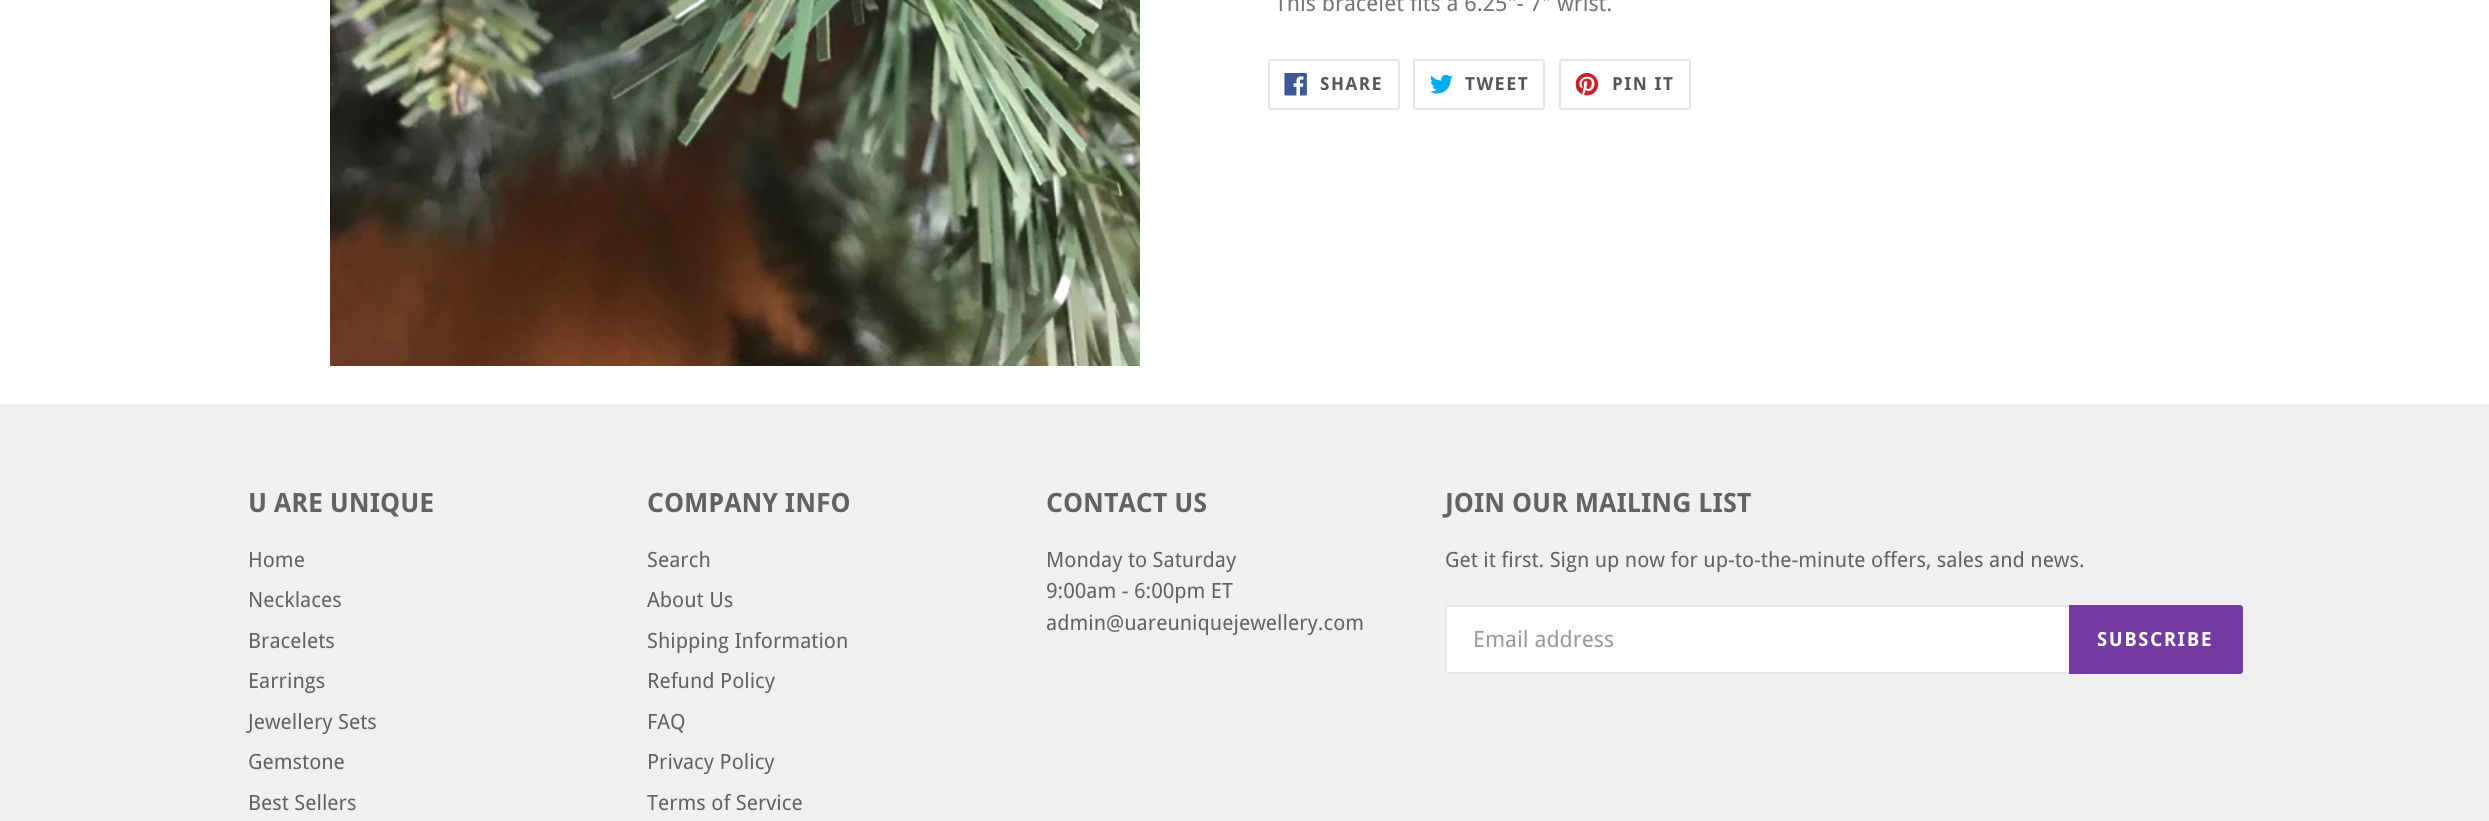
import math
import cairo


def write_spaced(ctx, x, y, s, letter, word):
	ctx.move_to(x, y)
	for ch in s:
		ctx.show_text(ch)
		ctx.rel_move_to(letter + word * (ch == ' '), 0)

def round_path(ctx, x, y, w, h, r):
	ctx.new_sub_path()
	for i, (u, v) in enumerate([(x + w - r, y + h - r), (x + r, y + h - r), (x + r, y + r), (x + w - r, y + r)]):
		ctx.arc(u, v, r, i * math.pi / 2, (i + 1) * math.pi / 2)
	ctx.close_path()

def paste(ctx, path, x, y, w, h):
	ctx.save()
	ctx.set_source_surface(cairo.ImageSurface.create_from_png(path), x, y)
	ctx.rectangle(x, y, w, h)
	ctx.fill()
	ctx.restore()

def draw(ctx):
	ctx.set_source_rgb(1, 1, 1)
	ctx.paint()
	paste(ctx, 'media/1.png', 330, 0, 810, 366)
	ctx.select_font_face('Droid Sans')
	ctx.set_font_size(22.5)
	ctx.set_source_rgb(0.459, 0.459, 0.459)
	ctx.move_to(1275, 11)
	ctx.show_text('This bracelet fits a 6.25"- 7" wrist.')
	round_path(ctx, 1269, 60, 130, 49, 2)
	ctx.set_source_rgb(0.902, 0.902, 0.902)
	ctx.stroke()
	paste(ctx, 'media/2.png', 1284, 73, 23, 23)
	ctx.select_font_face('Droid Sans', cairo.FONT_SLANT_NORMAL, cairo.FONT_WEIGHT_BOLD)
	ctx.set_font_size(18)
	ctx.set_source_rgb(0.337, 0.337, 0.337)
	write_spaced(ctx, 1320, 90, 'SHARE', 1.5, 0)
	round_path(ctx, 1414, 60, 130, 49, 2)
	ctx.set_source_rgb(0.902, 0.902, 0.902)
	ctx.stroke()
	paste(ctx, 'media/3.png', 1430, 74, 23, 20)
	ctx.set_source_rgb(0.337, 0.337, 0.337)
	write_spaced(ctx, 1465, 90, 'TWEET', 1.5, 0)
	round_path(ctx, 1560, 60, 130, 49, 2)
	ctx.set_source_rgb(0.902, 0.902, 0.902)
	ctx.stroke()
	paste(ctx, 'media/4.png', 1575, 73, 24, 23)
	ctx.set_source_rgb(0.337, 0.337, 0.337)
	write_spaced(ctx, 1612, 90, 'PIN IT', 1.5, 0)
	ctx.set_source_rgb(0.941, 0.941, 0.941)
	ctx.rectangle(0, 404, 2489, 417)
	ctx.fill()
	ctx.set_font_size(26.6)
	ctx.set_source_rgb(0.384, 0.384, 0.384)
	ctx.move_to(248, 512)
	ctx.show_text('U ARE UNIQUE')
	ctx.select_font_face('Droid Sans')
	ctx.set_font_size(21)
	for x, y, s in [
		(248, 567, 'Home'),
		(248, 607, 'Necklaces'),
		(248, 648, 'Bracelets'),
		(248, 688, 'Earrings'),
		(248, 729, 'Jewellery Sets'),
		(248, 769, 'Gemstone'),
		(248, 810, 'Best Sellers'),
	]:
		ctx.move_to(x, y)
		ctx.show_text(s)
	ctx.select_font_face('Droid Sans', cairo.FONT_SLANT_NORMAL, cairo.FONT_WEIGHT_BOLD)
	ctx.set_font_size(26.6)
	ctx.move_to(647, 512)
	ctx.show_text('COMPANY INFO')
	ctx.select_font_face('Droid Sans')
	ctx.set_font_size(21)
	for x, y, s in [
		(647, 567, 'Search'),
		(647, 607, 'About Us'),
		(647, 648, 'Shipping Information'),
		(647, 688, 'Refund Policy'),
		(647, 729, 'FAQ'),
		(647, 769, 'Privacy Policy'),
		(647, 810, 'Terms of Service'),
	]:
		ctx.move_to(x, y)
		ctx.show_text(s)
	ctx.select_font_face('Droid Sans', cairo.FONT_SLANT_NORMAL, cairo.FONT_WEIGHT_BOLD)
	ctx.set_font_size(26.6)
	ctx.move_to(1046, 512)
	ctx.show_text('CONTACT US')
	ctx.select_font_face('Droid Sans')
	ctx.set_font_size(21)
	for x, y, s in [
		(1046, 567, 'Monday to Saturday'),
		(1046, 598, '9:00am - 6:00pm ET'),
		(1046, 630, 'admin@uareuniquejewellery.com'),
	]:
		ctx.move_to(x, y)
		ctx.show_text(s)
	ctx.select_font_face('Droid Sans', cairo.FONT_SLANT_NORMAL, cairo.FONT_WEIGHT_BOLD)
	ctx.set_font_size(26.6)
	ctx.move_to(1445, 512)
	ctx.show_text('JOIN OUR MAILING LIST')
	ctx.select_font_face('Droid Sans')
	ctx.set_font_size(21)
	ctx.move_to(1445, 567)
	ctx.show_text('Get it first. Sign up now for up-to-the-minute offers, sales and news.')
	ctx.set_source_rgb(1, 1, 1)
	ctx.new_path()
	ctx.move_to(1448, 605)
	ctx.line_to(2069, 605)
	ctx.line_to(2069, 674)
	ctx.line_to(1448, 674)
	ctx.curve_to(1446.5, 674, 1445, 672.5, 1445, 671)
	ctx.line_to(1445, 608)
	ctx.curve_to(1445, 606.5, 1446.5, 605, 1448, 605)
	ctx.close_path()
	ctx.fill()
	ctx.set_source_rgb(0.902, 0.902, 0.902)
	ctx.rectangle(1446, 605, 623, 2)
	ctx.rectangle(1446, 672, 623, 2)
	ctx.rectangle(1445, 606, 2, 66)
	ctx.fill()
	ctx.set_font_size(22.5)
	ctx.set_source_rgb(0.604, 0.604, 0.604)
	ctx.move_to(1473, 647)
	ctx.show_text('Email address')
	ctx.set_source_rgb(0.451, 0.227, 0.631)
	ctx.new_path()
	ctx.move_to(2069, 605)
	ctx.line_to(2240, 605)
	ctx.curve_to(2241.5, 605, 2243, 606.5, 2243, 608)
	ctx.line_to(2243, 671)
	ctx.curve_to(2243, 672.5, 2241.5, 674, 2240, 674)
	ctx.line_to(2069, 674)
	ctx.close_path()
	ctx.fill()
	ctx.select_font_face('Droid Sans', cairo.FONT_SLANT_NORMAL, cairo.FONT_WEIGHT_BOLD)
	ctx.set_font_size(19.5)
	ctx.set_source_rgb(1, 1, 1)
	write_spaced(ctx, 2097, 646, 'SUBSCRIBE', 1.5, 0)


surface = cairo.ImageSurface(cairo.FORMAT_RGB24, 2489, 821)
ctx = cairo.Context(surface)
options = cairo.FontOptions()
options.set_hint_metrics(cairo.HINT_METRICS_OFF)
options.set_hint_style(cairo.HINT_STYLE_NONE)
ctx.set_font_options(options)
ctx.set_miter_limit(4)
draw(ctx)
surface.write_to_png('image.png')
